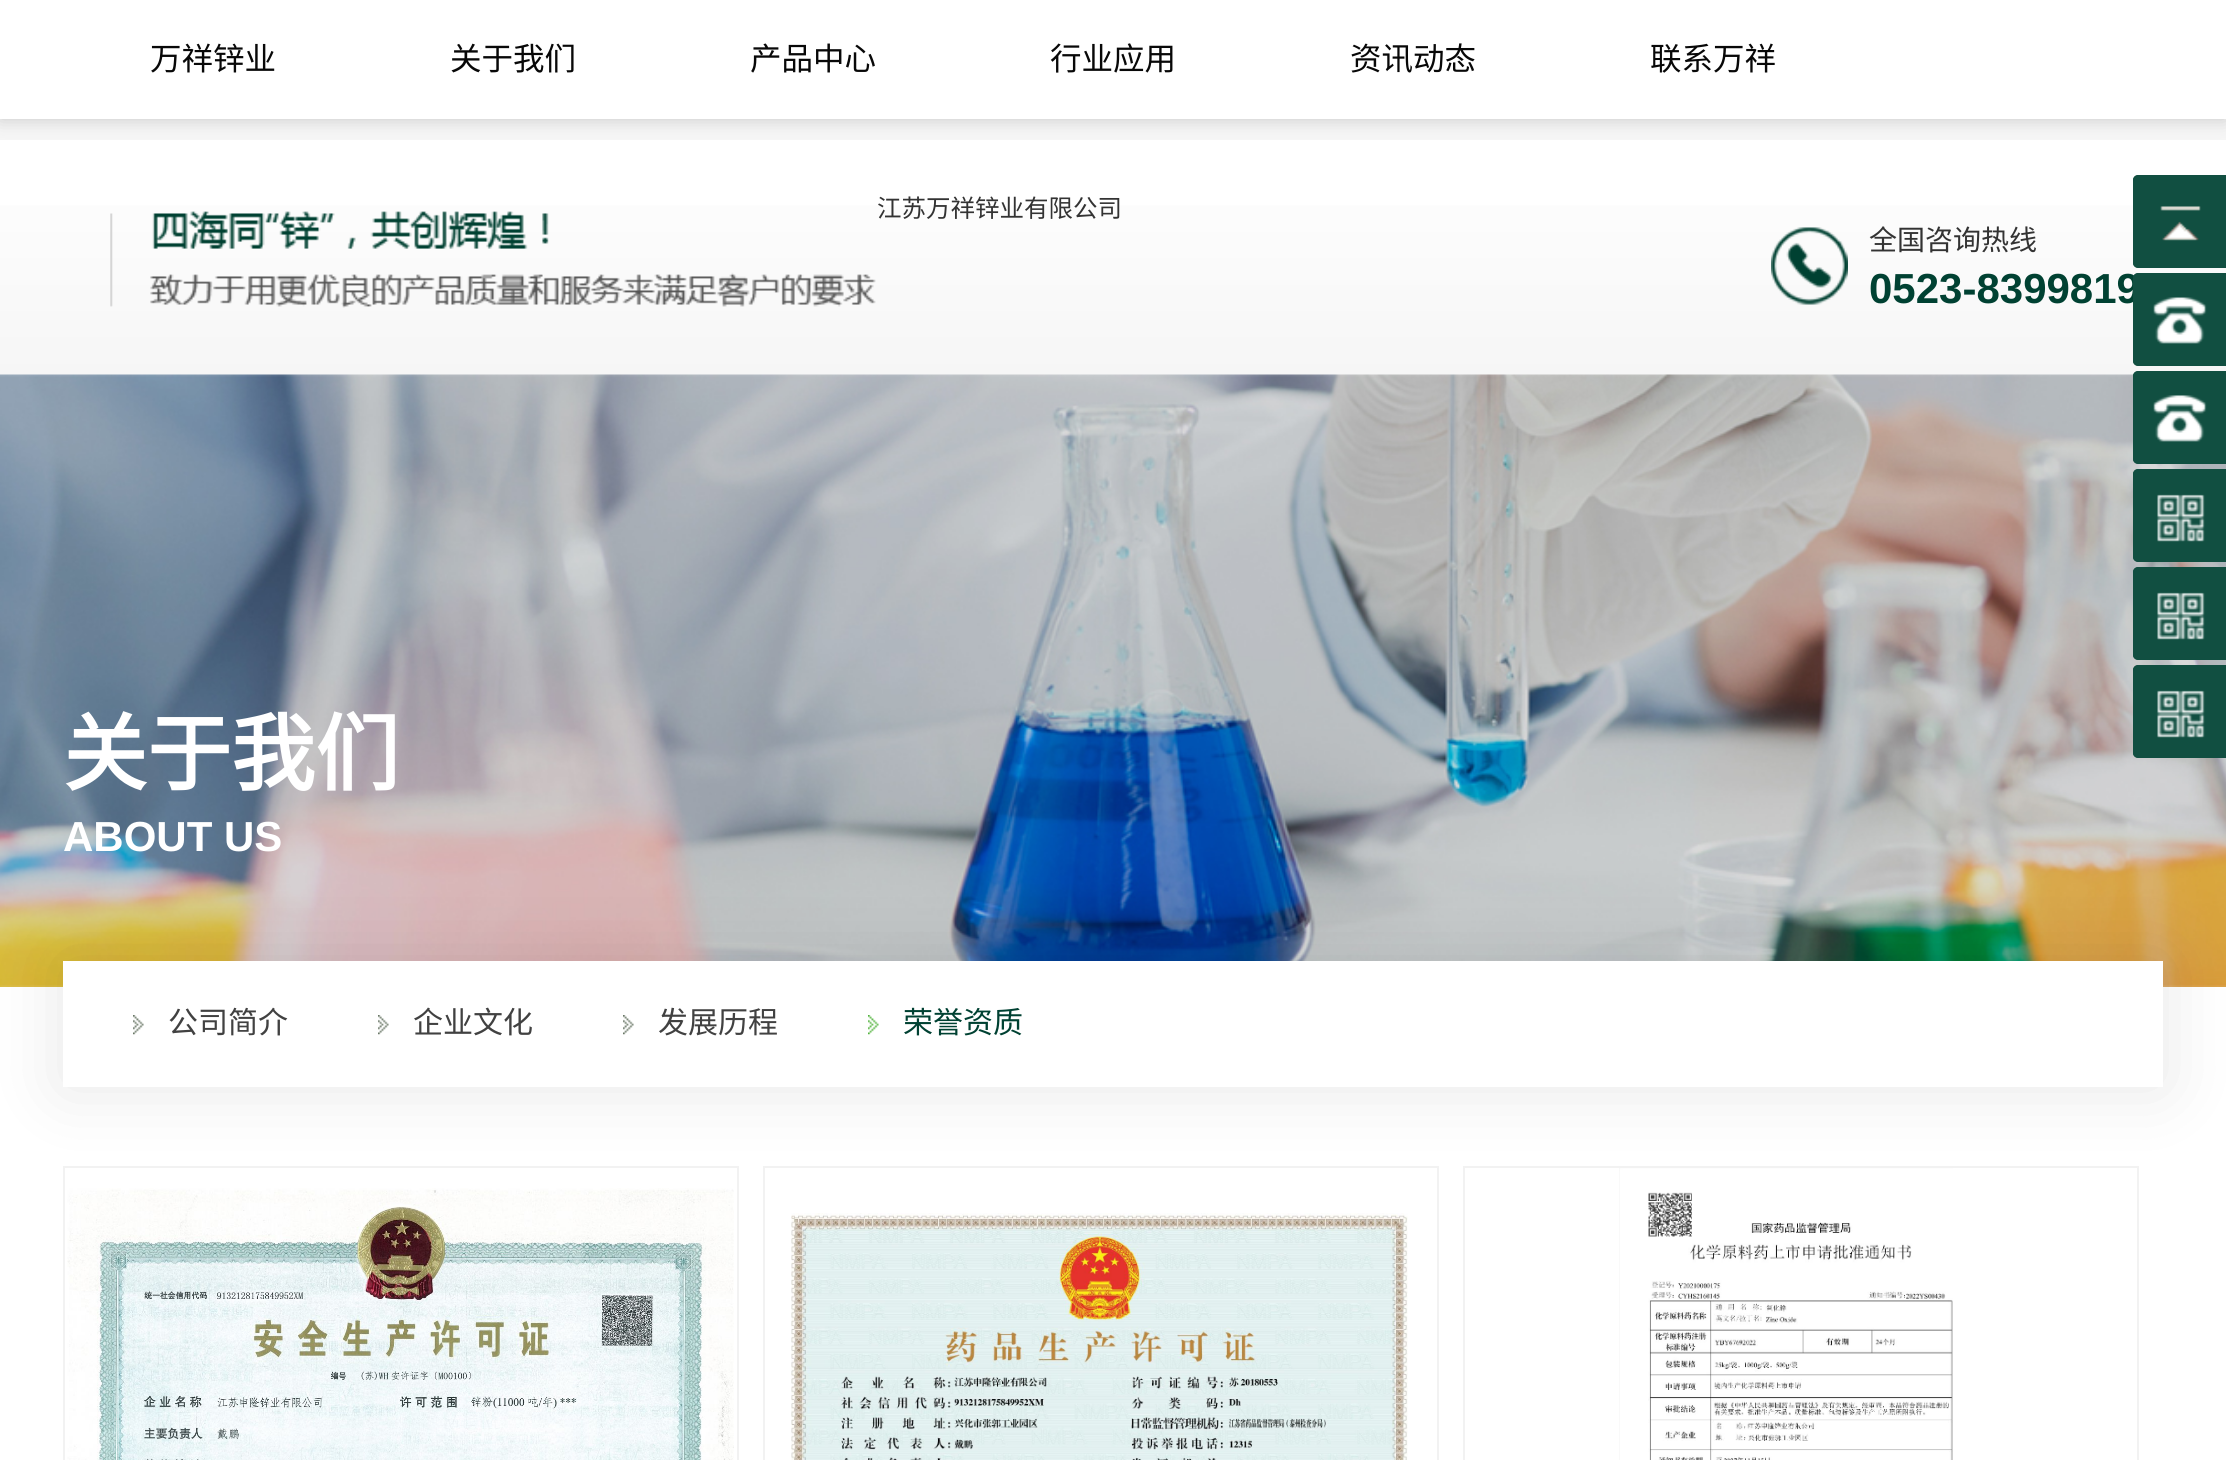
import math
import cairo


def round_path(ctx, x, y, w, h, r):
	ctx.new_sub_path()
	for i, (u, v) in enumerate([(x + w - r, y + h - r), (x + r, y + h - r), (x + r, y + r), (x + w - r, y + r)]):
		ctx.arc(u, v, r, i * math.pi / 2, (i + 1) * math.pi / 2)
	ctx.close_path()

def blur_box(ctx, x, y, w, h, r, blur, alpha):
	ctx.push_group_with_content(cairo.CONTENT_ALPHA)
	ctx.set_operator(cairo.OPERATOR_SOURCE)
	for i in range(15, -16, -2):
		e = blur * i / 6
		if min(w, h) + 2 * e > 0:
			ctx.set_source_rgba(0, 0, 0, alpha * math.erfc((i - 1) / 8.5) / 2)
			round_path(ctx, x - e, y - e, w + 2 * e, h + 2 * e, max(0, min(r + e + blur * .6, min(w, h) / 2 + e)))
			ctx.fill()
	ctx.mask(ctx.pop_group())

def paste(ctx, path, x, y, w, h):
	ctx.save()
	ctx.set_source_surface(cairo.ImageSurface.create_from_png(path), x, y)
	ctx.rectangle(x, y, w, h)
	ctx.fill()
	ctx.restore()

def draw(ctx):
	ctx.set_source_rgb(1, 1, 1)
	ctx.paint()
	ctx.set_source_rgb(0.961, 0.961, 0.961)
	ctx.rectangle(0, 119, 2226, 21)
	ctx.fill()
	ctx.set_source_rgb(0, 0, 0)
	blur_box(ctx, 0, 0, 2226, 119, 0, 9, 0.2)
	ctx.set_source_rgb(1, 1, 1)
	ctx.rectangle(0, 0, 2226, 119)
	ctx.fill()
	ctx.select_font_face('Noto Sans CJK SC')
	ctx.set_font_size(31.5)
	ctx.set_source_rgb(0.035, 0.035, 0.035)
	for x, y, s in [
		(150, 70, '万祥锌业'),
		(450, 70, '关于我们'),
		(750, 70, '产品中心'),
		(1050, 70, '行业应用'),
		(1350, 70, '资讯动态'),
		(1650, 70, '联系万祥'),
	]:
		ctx.move_to(x, y)
		ctx.show_text(s)
	gradient = cairo.LinearGradient(1113, 140, 1113, 375)
	gradient.add_color_stop_rgba(0, 1, 1, 1, 1)
	gradient.add_color_stop_rgba(1, 0.965, 0.965, 0.965, 1)
	ctx.set_source(gradient)
	ctx.rectangle(0, 205, 2226, 170)
	ctx.fill()
	ctx.set_font_size(24.5)
	ctx.set_source_rgb(0.2, 0.2, 0.2)
	ctx.move_to(877, 217)
	ctx.show_text('江苏万祥锌业有限公司')
	paste(ctx, 'media/1.png', 110, 211, 766, 97)
	paste(ctx, 'media/2.png', 1771, 227, 77, 78)
	ctx.set_font_size(28)
	ctx.move_to(1869, 250)
	ctx.show_text('全国咨询热线')
	ctx.select_font_face('Liberation Sans', cairo.FONT_SLANT_NORMAL, cairo.FONT_WEIGHT_BOLD)
	ctx.set_font_size(42)
	ctx.set_source_rgb(0, 0.255, 0.196)
	ctx.move_to(1869, 303)
	ctx.show_text('0523-8399819')
	ctx.set_source_rgb(0.067, 0.31, 0.255)
	round_path(ctx, 2133, 175, 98, 93, 5)
	ctx.fill()
	paste(ctx, 'media/3.png', 2133, 175, 68, 93)
	round_path(ctx, 2133, 273, 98, 93, 5)
	ctx.fill()
	paste(ctx, 'media/4.png', 2133, 273, 74, 93)
	paste(ctx, 'media/9.png', 0, 374, 2226, 613)
	round_path(ctx, 2133, 371, 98, 93, 5)
	ctx.fill()
	paste(ctx, 'media/5.png', 2133, 371, 74, 93)
	round_path(ctx, 2133, 469, 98, 93, 5)
	ctx.fill()
	paste(ctx, 'media/6.png', 2133, 469, 72, 93)
	round_path(ctx, 2133, 567, 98, 93, 5)
	ctx.fill()
	paste(ctx, 'media/7.png', 2133, 567, 72, 93)
	round_path(ctx, 2133, 665, 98, 93, 5)
	ctx.fill()
	paste(ctx, 'media/8.png', 2133, 665, 72, 93)
	ctx.select_font_face('Noto Sans CJK SC', cairo.FONT_SLANT_NORMAL, cairo.FONT_WEIGHT_BOLD)
	ctx.set_font_size(84)
	ctx.set_source_rgb(1, 1, 1)
	ctx.move_to(63, 784)
	ctx.show_text('关于我们')
	ctx.select_font_face('Liberation Sans', cairo.FONT_SLANT_NORMAL, cairo.FONT_WEIGHT_BOLD)
	ctx.set_font_size(42)
	ctx.move_to(63, 851)
	ctx.show_text('ABOUT US')
	ctx.rectangle(64, 1167, 674, 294)
	ctx.set_source_rgb(0.949, 0.949, 0.949)
	ctx.stroke()
	paste(ctx, 'media/13.png', 67, 1188, 667, 272)
	ctx.rectangle(764, 1167, 674, 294)
	ctx.stroke()
	ctx.rectangle(1464, 1167, 674, 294)
	ctx.stroke()
	paste(ctx, 'media/15.png', 1619, 1168, 334, 292)
	ctx.set_source_rgb(0, 0, 0)
	blur_box(ctx, 63, 961, 2100, 126, 0, 35, 0.1)
	ctx.set_source_rgb(1, 1, 1)
	ctx.rectangle(63, 961, 2100, 126)
	ctx.fill()
	paste(ctx, 'media/10.png', 133, 1015, 11, 20)
	ctx.select_font_face('Noto Sans CJK SC')
	ctx.set_font_size(30)
	ctx.set_source_rgb(0.255, 0.255, 0.255)
	ctx.move_to(168, 1033)
	ctx.show_text('公司简介')
	paste(ctx, 'media/11.png', 378, 1015, 11, 20)
	ctx.move_to(413, 1033)
	ctx.show_text('企业文化')
	paste(ctx, 'media/11.png', 623, 1015, 11, 20)
	ctx.move_to(658, 1033)
	ctx.show_text('发展历程')
	paste(ctx, 'media/12.png', 868, 1015, 11, 20)
	ctx.set_source_rgb(0, 0.255, 0.196)
	ctx.move_to(903, 1033)
	ctx.show_text('荣誉资质')
	paste(ctx, 'media/14.png', 791, 1213, 617, 247)


surface = cairo.ImageSurface(cairo.FORMAT_RGB24, 2226, 1460)
ctx = cairo.Context(surface)
options = cairo.FontOptions()
options.set_hint_metrics(cairo.HINT_METRICS_OFF)
options.set_hint_style(cairo.HINT_STYLE_NONE)
ctx.set_font_options(options)
ctx.set_miter_limit(4)
draw(ctx)
surface.write_to_png('image.png')
